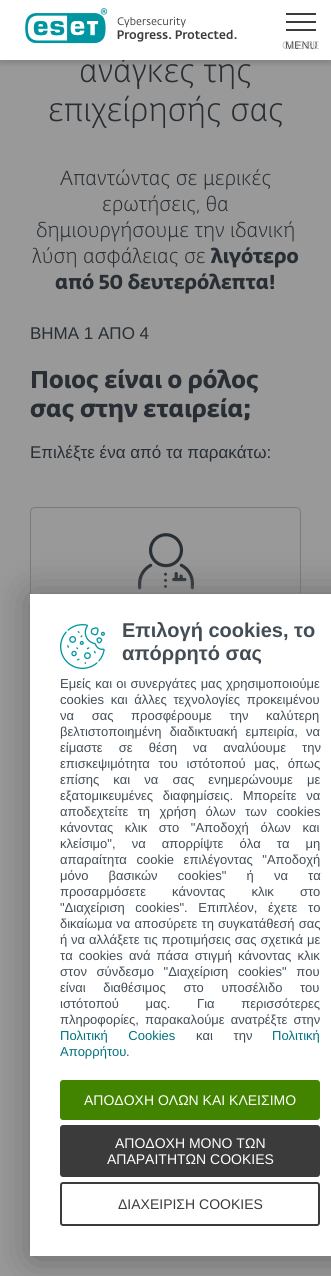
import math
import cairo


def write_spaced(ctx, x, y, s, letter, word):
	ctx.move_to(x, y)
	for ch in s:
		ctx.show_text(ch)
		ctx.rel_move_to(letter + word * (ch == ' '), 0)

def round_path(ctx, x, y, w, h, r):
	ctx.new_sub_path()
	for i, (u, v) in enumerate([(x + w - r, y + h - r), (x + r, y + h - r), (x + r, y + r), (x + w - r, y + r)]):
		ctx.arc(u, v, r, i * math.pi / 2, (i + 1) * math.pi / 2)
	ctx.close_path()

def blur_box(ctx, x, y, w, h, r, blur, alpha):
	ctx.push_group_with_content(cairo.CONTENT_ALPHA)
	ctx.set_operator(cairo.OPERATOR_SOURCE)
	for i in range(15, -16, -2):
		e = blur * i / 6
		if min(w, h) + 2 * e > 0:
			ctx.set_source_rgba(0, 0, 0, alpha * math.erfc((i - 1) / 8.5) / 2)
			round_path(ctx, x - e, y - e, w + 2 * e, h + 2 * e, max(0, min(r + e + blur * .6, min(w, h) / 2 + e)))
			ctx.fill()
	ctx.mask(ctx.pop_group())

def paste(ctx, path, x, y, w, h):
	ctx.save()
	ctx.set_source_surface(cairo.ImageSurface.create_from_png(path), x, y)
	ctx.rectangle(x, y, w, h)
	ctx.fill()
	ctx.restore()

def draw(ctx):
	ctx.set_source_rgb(1, 1, 1)
	ctx.paint()
	ctx.select_font_face('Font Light')
	ctx.set_font_size(32)
	ctx.set_source_rgb(0.259, 0.302, 0.337)
	ctx.move_to(79, 82)
	ctx.show_text('ανάγκες της')
	ctx.move_to(48, 121)
	ctx.show_text('επιχείρησής σας')
	ctx.set_font_size(20)
	for x, y, s in [
		(60, 185, 'Απαντώντας σε μερικές'),
		(102, 211, 'ερωτήσεις, θα'),
		(36, 237, 'δημιουργήσουμε την ιδανική'),
		(32, 263, 'λύση ασφάλειας σε'),
	]:
		ctx.move_to(x, y)
		ctx.show_text(s)
	ctx.select_font_face('Font', cairo.FONT_SLANT_NORMAL, cairo.FONT_WEIGHT_BOLD)
	ctx.move_to(211, 263)
	ctx.show_text('λιγότερο')
	ctx.move_to(55, 289)
	ctx.show_text('από 50 δευτερόλεπτα!')
	ctx.select_font_face('Liberation Sans')
	ctx.set_font_size(17)
	ctx.move_to(30, 339)
	ctx.show_text('ΒΗΜΑ 1 ΑΠΟ 4')
	ctx.select_font_face('Font', cairo.FONT_SLANT_NORMAL, cairo.FONT_WEIGHT_BOLD)
	ctx.set_font_size(24)
	ctx.move_to(30, 388)
	ctx.show_text('Ποιος είναι ο ρόλος')
	ctx.move_to(30, 417)
	ctx.show_text('σας στην εταιρεία;')
	ctx.select_font_face('Liberation Sans')
	ctx.set_font_size(17)
	ctx.move_to(30, 458)
	ctx.show_text('Επιλέξτε ένα από τα παρακάτω:')
	round_path(ctx, 30.5, 507.5, 270, 191, 4.5)
	ctx.set_source_rgb(0.776, 0.812, 0.831)
	ctx.set_line_width(1)
	ctx.stroke()
	paste(ctx, 'media/2.png', 138, 533, 56, 57)
	ctx.rectangle(-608, -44, 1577, 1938)
	ctx.set_source_rgba(0, 0, 0, 0.4)
	ctx.set_line_width(1276)
	ctx.stroke()
	ctx.set_source_rgb(0, 0, 0)
	blur_box(ctx, 0, 3, 331, 60, 0, 3, 0.16)
	ctx.set_source_rgb(1, 1, 1)
	ctx.rectangle(0, 0, 331, 60)
	ctx.fill()
	paste(ctx, 'media/1.png', 25, 8, 212, 36)
	ctx.set_source_rgb(0.231, 0.231, 0.231)
	ctx.rectangle(286, 13, 30, 2)
	ctx.rectangle(286, 21, 30, 2)
	ctx.rectangle(286, 29, 30, 2)
	ctx.fill()
	ctx.set_font_size(11)
	ctx.move_to(285, 49)
	ctx.show_text('MENU')
	ctx.set_source_rgb(0.78, 0.78, 0.78)
	ctx.move_to(282, 49)
	ctx.show_text('CLOSE')
	ctx.set_source_rgb(0.4, 0.4, 0.4)
	blur_box(ctx, 32, 596, 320, 662, 0, 20, 1)
	ctx.set_source_rgb(1, 1, 1)
	ctx.rectangle(30, 594, 301, 662)
	ctx.fill()
	ctx.select_font_face('Liberation Sans', cairo.FONT_SLANT_NORMAL, cairo.FONT_WEIGHT_BOLD)
	ctx.set_font_size(20)
	ctx.set_source_rgb(0.259, 0.302, 0.337)
	ctx.move_to(122, 637)
	ctx.show_text('Επιλογή cookies, το')
	ctx.move_to(122, 660)
	ctx.show_text('απόρρητό σας')
	ctx.select_font_face('Liberation Sans')
	ctx.set_font_size(13)
	write_spaced(ctx, 60, 688, 'Εμείς και οι συνεργάτες μας χρησιμοποιούμε', 0, 0.5)
	write_spaced(ctx, 60, 704, 'cookies και άλλες τεχνολογίες προκειμένου', 0, 3)
	write_spaced(ctx, 60, 720, 'να σας προσφέρουμε την καλύτερη', 0, 14)
	write_spaced(ctx, 60, 736, 'βελτιστοποιημένη διαδικτυακή εμπειρία, να', 0, 4.5)
	write_spaced(ctx, 60, 752, 'είμαστε σε θέση να αναλύουμε την', 0, 12.5)
	write_spaced(ctx, 60, 768, 'επισκεψιμότητα του ιστότοπού μας, όπως', 0, 5)
	write_spaced(ctx, 60, 784, 'επίσης και να σας ενημερώνουμε με', 0, 10.5)
	write_spaced(ctx, 60, 800, 'εξατομικευμένες διαφημίσεις. Μπορείτε να', 0, 6)
	write_spaced(ctx, 60, 816, 'αποδεχτείτε τη χρήση όλων των cookies', 0, 5.75)
	write_spaced(ctx, 60, 832, 'κάνοντας κλικ στο "Αποδοχή όλων και', 0, 8)
	write_spaced(ctx, 60, 848, 'κλείσιμο", να απορρίψτε όλα τα μη', 0, 12.5)
	write_spaced(ctx, 60, 864, 'απαραίτητα cookie επιλέγοντας "Αποδοχή', 0, 6)
	write_spaced(ctx, 60, 880, 'μόνο βασικών cookies" ή να τα', 0, 16.5)
	write_spaced(ctx, 60, 896, 'προσαρμόσετε κάνοντας κλικ στο', 0, 22.5)
	write_spaced(ctx, 60, 912, '"Διαχείριση cookies". Επιπλέον, έχετε το', 0, 7)
	write_spaced(ctx, 60, 928, 'δικαίωμα να αποσύρετε τη συγκατάθεσή σας', 0, 0.5)
	write_spaced(ctx, 60, 944, 'ή να αλλάξετε τις προτιμήσεις σας σχετικά με', 0, 0.25)
	write_spaced(ctx, 60, 960, 'τα cookies ανά πάσα στιγμή κάνοντας κλικ', 0, 2.5)
	write_spaced(ctx, 60, 976, 'στον σύνδεσμο "Διαχείριση cookies" που', 0, 6)
	write_spaced(ctx, 60, 992, 'είναι διαθέσιμος στο υποσέλιδο του', 0, 14)
	write_spaced(ctx, 60, 1008, 'ιστότοπού μας. Για περισσότερες', 0, 23)
	write_spaced(ctx, 60, 1024, 'πληροφορίες, παρακαλούμε ανατρέξτε στην', 0, 2.5)
	ctx.set_source_rgb(0, 0.443, 0.498)
	write_spaced(ctx, 60, 1040, 'Πολιτική Cookies', 0, 17)
	ctx.set_source_rgb(0.259, 0.302, 0.337)
	write_spaced(ctx, 196, 1040, 'και την', 0, 17)
	ctx.set_source_rgb(0, 0.443, 0.498)
	ctx.move_to(272, 1040)
	ctx.show_text('Πολιτική')
	ctx.move_to(60, 1056)
	ctx.show_text('Απορρήτου')
	ctx.set_source_rgb(0.259, 0.302, 0.337)
	ctx.move_to(126, 1056)
	ctx.show_text('.')
	paste(ctx, 'media/3.png', 60, 624, 45, 45)
	ctx.set_source_rgb(0.259, 0.518, 0)
	round_path(ctx, 60, 1080, 260, 40, 3)
	ctx.fill()
	ctx.set_font_size(14)
	ctx.set_source_rgb(1, 1, 1)
	ctx.move_to(84, 1105)
	ctx.show_text('ΑΠΟΔΟΧΗ ΟΛΩΝ ΚΑΙ ΚΛΕΙΣΙΜΟ')
	ctx.set_source_rgb(0.231, 0.231, 0.231)
	round_path(ctx, 60, 1125, 260, 52, 3)
	ctx.fill()
	ctx.set_source_rgb(1, 1, 1)
	ctx.move_to(115, 1148)
	ctx.show_text('ΑΠΟΔΟΧΗ ΜΟΝΟ ΤΩΝ')
	ctx.move_to(107, 1164)
	ctx.show_text('ΑΠΑΡΑΙΤΗΤΩΝ COOKIES')
	round_path(ctx, 61, 1183, 258, 42, 2)
	ctx.set_source_rgb(0.231, 0.231, 0.231)
	ctx.set_line_width(2)
	ctx.stroke()
	ctx.move_to(118, 1209)
	ctx.show_text('ΔΙΑΧΕΙΡΙΣΗ COOKIES')


surface = cairo.ImageSurface(cairo.FORMAT_RGB24, 331, 1276)
ctx = cairo.Context(surface)
options = cairo.FontOptions()
options.set_hint_metrics(cairo.HINT_METRICS_OFF)
options.set_hint_style(cairo.HINT_STYLE_NONE)
ctx.set_font_options(options)
ctx.set_miter_limit(4)
draw(ctx)
surface.write_to_png('image.png')
